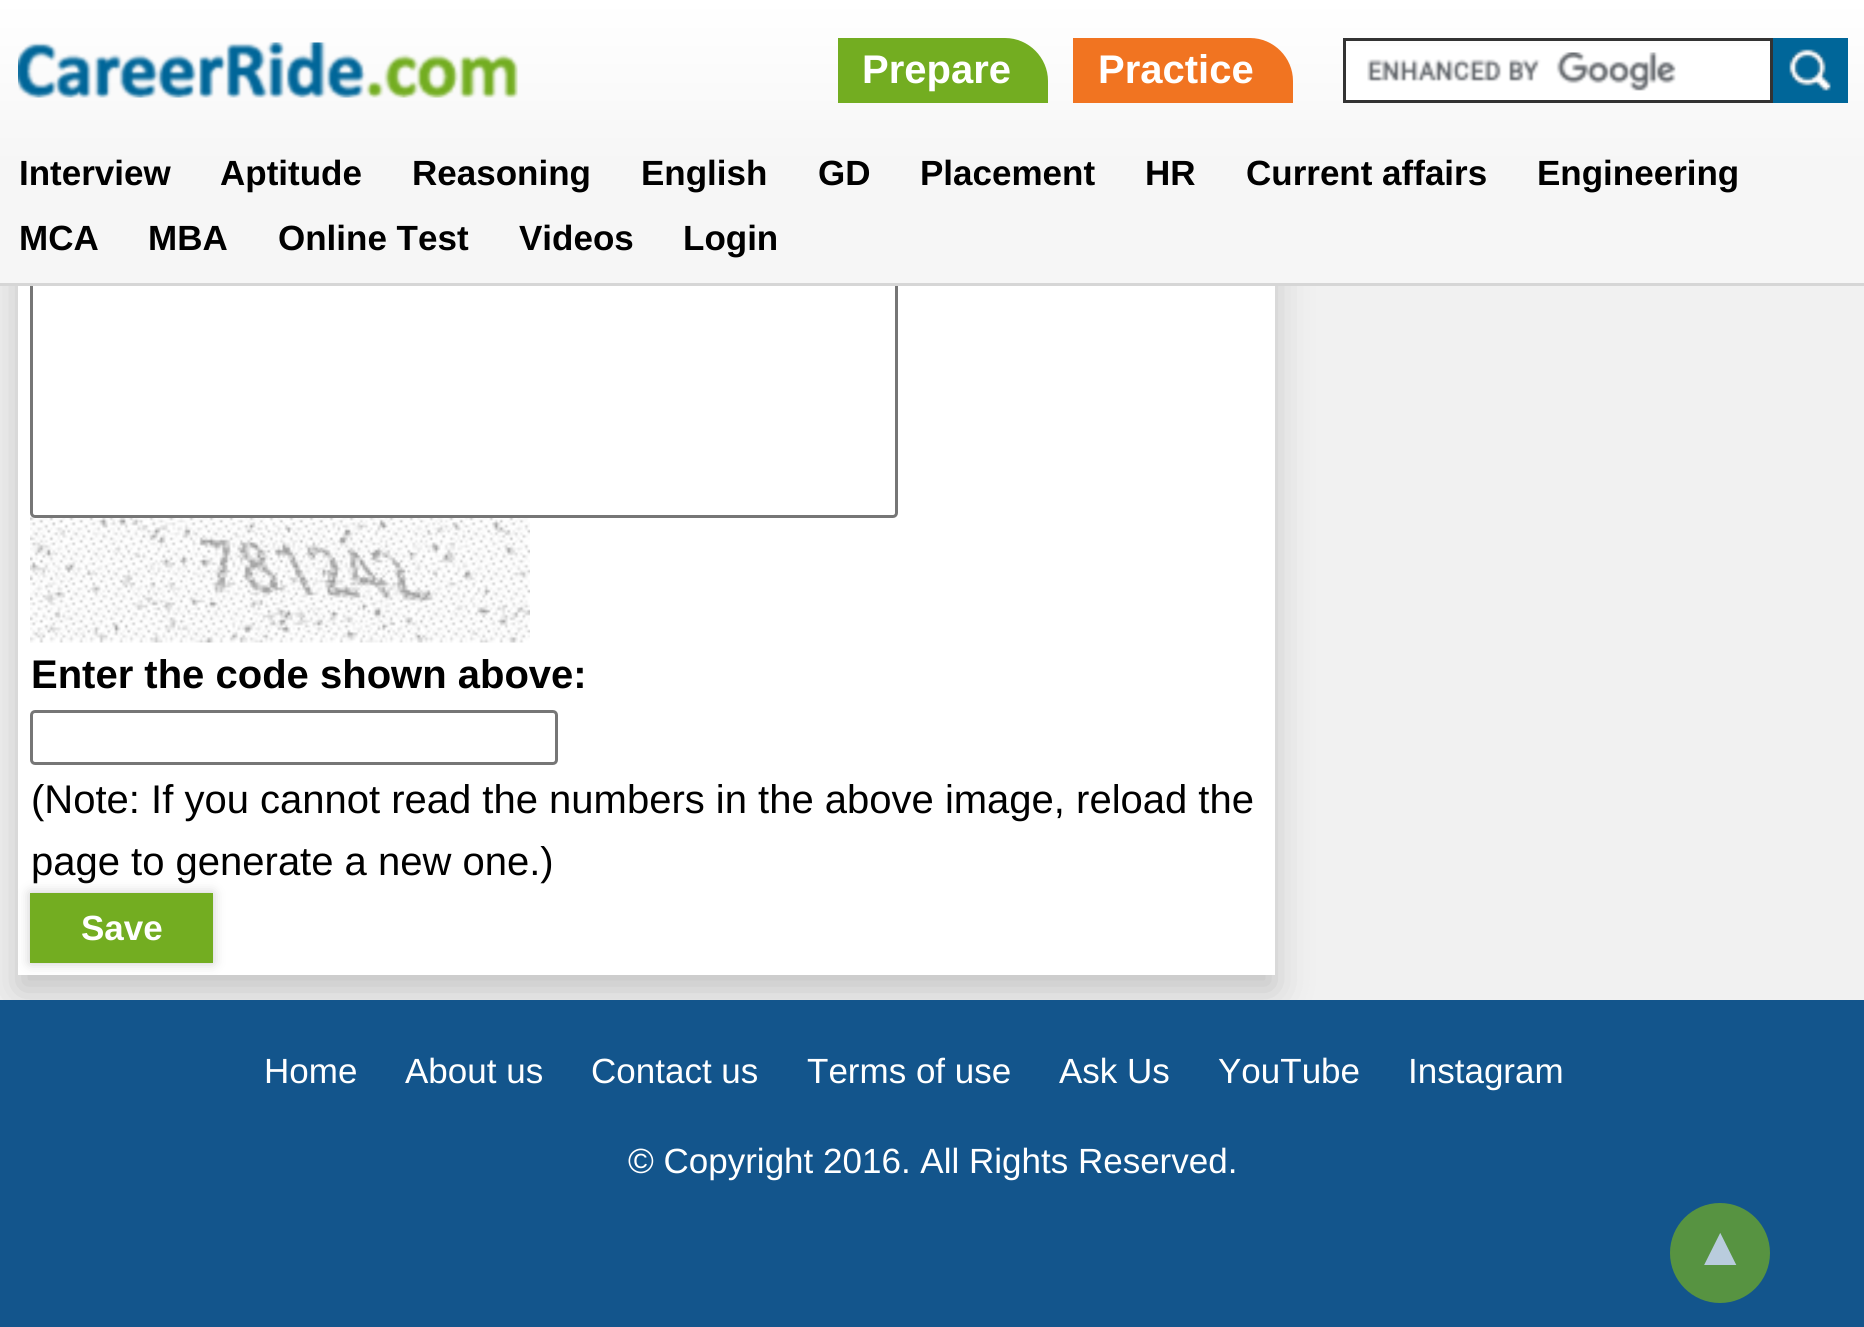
import math
import cairo


def round_path(ctx, x, y, w, h, r):
	ctx.new_sub_path()
	for i, (u, v) in enumerate([(x + w - r, y + h - r), (x + r, y + h - r), (x + r, y + r), (x + w - r, y + r)]):
		ctx.arc(u, v, r, i * math.pi / 2, (i + 1) * math.pi / 2)
	ctx.close_path()

def blur_box(ctx, x, y, w, h, r, blur, alpha):
	ctx.push_group_with_content(cairo.CONTENT_ALPHA)
	ctx.set_operator(cairo.OPERATOR_SOURCE)
	for i in range(15, -16, -2):
		e = blur * i / 6
		if min(w, h) + 2 * e > 0:
			ctx.set_source_rgba(0, 0, 0, alpha * math.erfc((i - 1) / 8.5) / 2)
			round_path(ctx, x - e, y - e, w + 2 * e, h + 2 * e, max(0, min(r + e + blur * .6, min(w, h) / 2 + e)))
			ctx.fill()
	ctx.mask(ctx.pop_group())

def paste(ctx, path, x, y, w, h):
	ctx.save()
	ctx.set_source_surface(cairo.ImageSurface.create_from_png(path), x, y)
	ctx.rectangle(x, y, w, h)
	ctx.fill()
	ctx.restore()

def draw(ctx):
	ctx.set_source_rgb(0.945, 0.945, 0.945)
	ctx.paint()
	ctx.set_source_rgb(0.078, 0.333, 0.549)
	ctx.rectangle(0, 1000, 1864, 327)
	ctx.fill()
	ctx.save()
	ctx.rectangle(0, 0, 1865, 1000)
	ctx.clip()
	ctx.set_source_rgb(0, 0, 0)
	blur_box(ctx, 18, -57, 1257, 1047, 0, 19, 0.2)
	ctx.restore()
	ctx.set_source_rgb(1, 1, 1)
	ctx.rectangle(18, 286, 1257, 689)
	ctx.fill()
	paste(ctx, 'media/4.png', 30, 517, 500, 126)
	round_path(ctx, 31.5, 201.5, 865, 315, 3.5)
	ctx.fill_preserve()
	ctx.set_source_rgb(0.463, 0.463, 0.463)
	ctx.set_line_width(3)
	ctx.stroke()
	gradient = cairo.LinearGradient(933, 283, 933, 0)
	gradient.add_color_stop_rgba(0.42, 0.965, 0.965, 0.965, 1)
	gradient.add_color_stop_rgba(1, 1, 1, 1, 1)
	ctx.set_source(gradient)
	ctx.rectangle(0, 0, 1864, 283)
	ctx.fill()
	ctx.set_source_rgb(0.839, 0.839, 0.839)
	ctx.rectangle(0, 283, 1864, 3)
	ctx.fill()
	paste(ctx, 'media/1.png', 18, 42, 500, 56)
	ctx.set_source_rgb(0.451, 0.678, 0.129)
	ctx.new_path()
	ctx.move_to(838, 38)
	ctx.line_to(1005, 38)
	ctx.curve_to(1028.5, 38, 1048, 57.5, 1048, 81)
	ctx.line_to(1048, 103)
	ctx.line_to(838, 103)
	ctx.close_path()
	ctx.fill()
	ctx.select_font_face('Liberation Sans', cairo.FONT_SLANT_NORMAL, cairo.FONT_WEIGHT_BOLD)
	ctx.set_font_size(40)
	ctx.set_source_rgb(1, 1, 1)
	ctx.move_to(862, 83)
	ctx.show_text('Prepare')
	ctx.set_source_rgb(0.945, 0.455, 0.129)
	ctx.new_path()
	ctx.move_to(1073, 38)
	ctx.line_to(1250, 38)
	ctx.curve_to(1273.5, 38, 1293, 57.5, 1293, 81)
	ctx.line_to(1293, 103)
	ctx.line_to(1073, 103)
	ctx.close_path()
	ctx.fill()
	ctx.set_source_rgb(1, 1, 1)
	ctx.move_to(1098, 83)
	ctx.show_text('Practice')
	ctx.rectangle(1346, 46, 424, 54)
	ctx.fill()
	paste(ctx, 'media/2.png', 1367, 52, 309, 39)
	ctx.rectangle(1344.5, 39.5, 427, 62)
	ctx.set_source_rgb(0.2, 0.2, 0.2)
	ctx.stroke()
	ctx.set_source_rgb(0, 0.4, 0.6)
	ctx.rectangle(1773, 38, 75, 65)
	ctx.fill()
	paste(ctx, 'media/3.png', 1789, 49, 42, 42)
	ctx.set_font_size(35)
	ctx.set_source_rgb(0, 0, 0)
	for x, y, s in [
		(19, 185, 'Interview'),
		(220, 185, 'Aptitude'),
		(412, 185, 'Reasoning'),
		(641, 185, 'English'),
		(818, 185, 'GD'),
		(920, 185, 'Placement'),
		(1145, 185, 'HR'),
		(1246, 185, 'Current affairs'),
		(1537, 185, 'Engineering'),
		(19, 250, 'MCA'),
		(148, 250, 'MBA'),
		(278, 250, 'Online Test'),
		(519, 250, 'Videos'),
		(683, 250, 'Login'),
	]:
		ctx.move_to(x, y)
		ctx.show_text(s)
	ctx.set_font_size(40)
	ctx.move_to(31, 688)
	ctx.show_text('Enter the code shown above:')
	round_path(ctx, 31.5, 711.5, 525, 52, 3.5)
	ctx.set_source_rgb(0.463, 0.463, 0.463)
	ctx.stroke()
	ctx.select_font_face('Liberation Sans')
	ctx.set_source_rgb(0, 0, 0)
	ctx.move_to(31, 813)
	ctx.show_text('(Note: If you cannot read the numbers in the above image, reload the')
	ctx.move_to(31, 875)
	ctx.show_text('page to generate a new one.)')
	ctx.set_source_rgb(0.8, 0.8, 0.8)
	blur_box(ctx, 30, 893, 183, 70, 0, 6, 1)
	ctx.set_source_rgb(0.451, 0.678, 0.129)
	ctx.rectangle(30, 893, 183, 70)
	ctx.fill()
	ctx.select_font_face('Liberation Sans', cairo.FONT_SLANT_NORMAL, cairo.FONT_WEIGHT_BOLD)
	ctx.set_font_size(35)
	ctx.set_source_rgb(1, 1, 1)
	ctx.move_to(81, 940)
	ctx.show_text('Save')
	ctx.select_font_face('Liberation Sans')
	for x, y, s in [
		(264, 1083, 'Home'),
		(405, 1083, 'About us'),
		(591, 1083, 'Contact us'),
		(807, 1083, 'Terms of use'),
		(1059, 1083, 'Ask Us'),
		(1218, 1083, 'YouTube'),
		(1408, 1083, 'Instagram'),
		(628, 1173, '© Copyright 2016. All Rights Reserved.'),
	]:
		ctx.move_to(x, y)
		ctx.show_text(s)
	ctx.set_source_rgb(0.341, 0.576, 0.255)
	ctx.new_path()
	ctx.arc(1720, 1253, 50, 0, 2 * math.pi)
	ctx.fill()
	ctx.select_font_face('Liberation Sans', cairo.FONT_SLANT_NORMAL, cairo.FONT_WEIGHT_BOLD)
	ctx.set_font_size(55)
	ctx.set_source_rgb(0.725, 0.8, 0.867)
	ctx.move_to(1693, 1265)
	ctx.show_text('▲')


surface = cairo.ImageSurface(cairo.FORMAT_RGB24, 1864, 1327)
ctx = cairo.Context(surface)
options = cairo.FontOptions()
options.set_hint_metrics(cairo.HINT_METRICS_OFF)
options.set_hint_style(cairo.HINT_STYLE_NONE)
ctx.set_font_options(options)
ctx.set_miter_limit(4)
draw(ctx)
surface.write_to_png('image.png')
